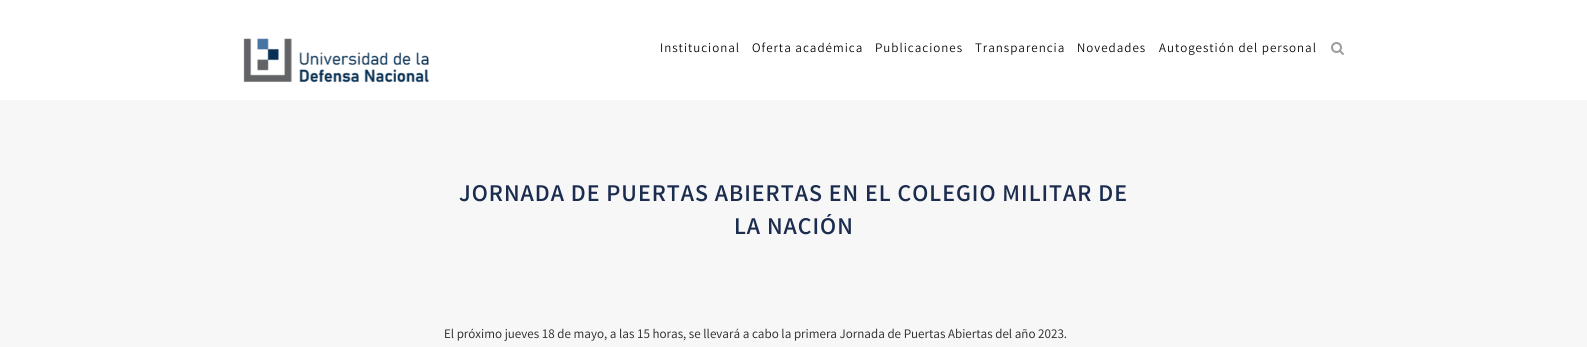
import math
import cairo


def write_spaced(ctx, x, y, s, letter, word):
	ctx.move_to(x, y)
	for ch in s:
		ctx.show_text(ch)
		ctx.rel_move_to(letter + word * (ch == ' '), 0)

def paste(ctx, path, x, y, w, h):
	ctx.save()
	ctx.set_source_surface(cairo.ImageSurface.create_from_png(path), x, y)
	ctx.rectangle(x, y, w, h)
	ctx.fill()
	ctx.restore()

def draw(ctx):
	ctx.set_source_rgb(0.965, 0.965, 0.965)
	ctx.paint()
	ctx.set_source_rgb(1, 1, 1)
	ctx.rectangle(0, 0, 1587, 100)
	ctx.fill()
	paste(ctx, 'media/1.png', 243, 38, 186, 45)
	ctx.select_font_face('Varta Light')
	ctx.set_font_size(13)
	ctx.set_source_rgb(0, 0, 0)
	for x, y, s in [
		(660, 52, 'Institucional'),
		(752, 52, 'Oferta académica'),
		(875, 52, 'Publicaciones'),
		(975, 52, 'Transparencia'),
		(1077, 52, 'Novedades'),
		(1159, 52, 'Autogestión del personal'),
	]:
		write_spaced(ctx, x, y, s, 1, 0)
	paste(ctx, 'media/2.png', 1331, 42, 13, 13)
	ctx.select_font_face('Varta', cairo.FONT_SLANT_NORMAL, cairo.FONT_WEIGHT_BOLD)
	ctx.set_font_size(24)
	ctx.set_source_rgb(0.106, 0.173, 0.31)
	write_spaced(ctx, 459, 201, 'JORNADA DE PUERTAS ABIERTAS EN EL COLEGIO MILITAR DE', 1, 0)
	write_spaced(ctx, 734, 234, 'LA NACIÓN', 1, 0)
	ctx.select_font_face('Varta')
	ctx.set_font_size(13)
	ctx.set_source_rgb(0.173, 0.173, 0.173)
	ctx.move_to(444, 338)
	ctx.show_text('El próximo jueves 18 de mayo, a las 15 horas, se llevará a cabo la primera Jornada de Puertas Abiertas del año 2023.')


surface = cairo.ImageSurface(cairo.FORMAT_RGB24, 1587, 347)
ctx = cairo.Context(surface)
options = cairo.FontOptions()
options.set_hint_metrics(cairo.HINT_METRICS_OFF)
options.set_hint_style(cairo.HINT_STYLE_NONE)
ctx.set_font_options(options)
ctx.set_miter_limit(4)
draw(ctx)
surface.write_to_png('image.png')
